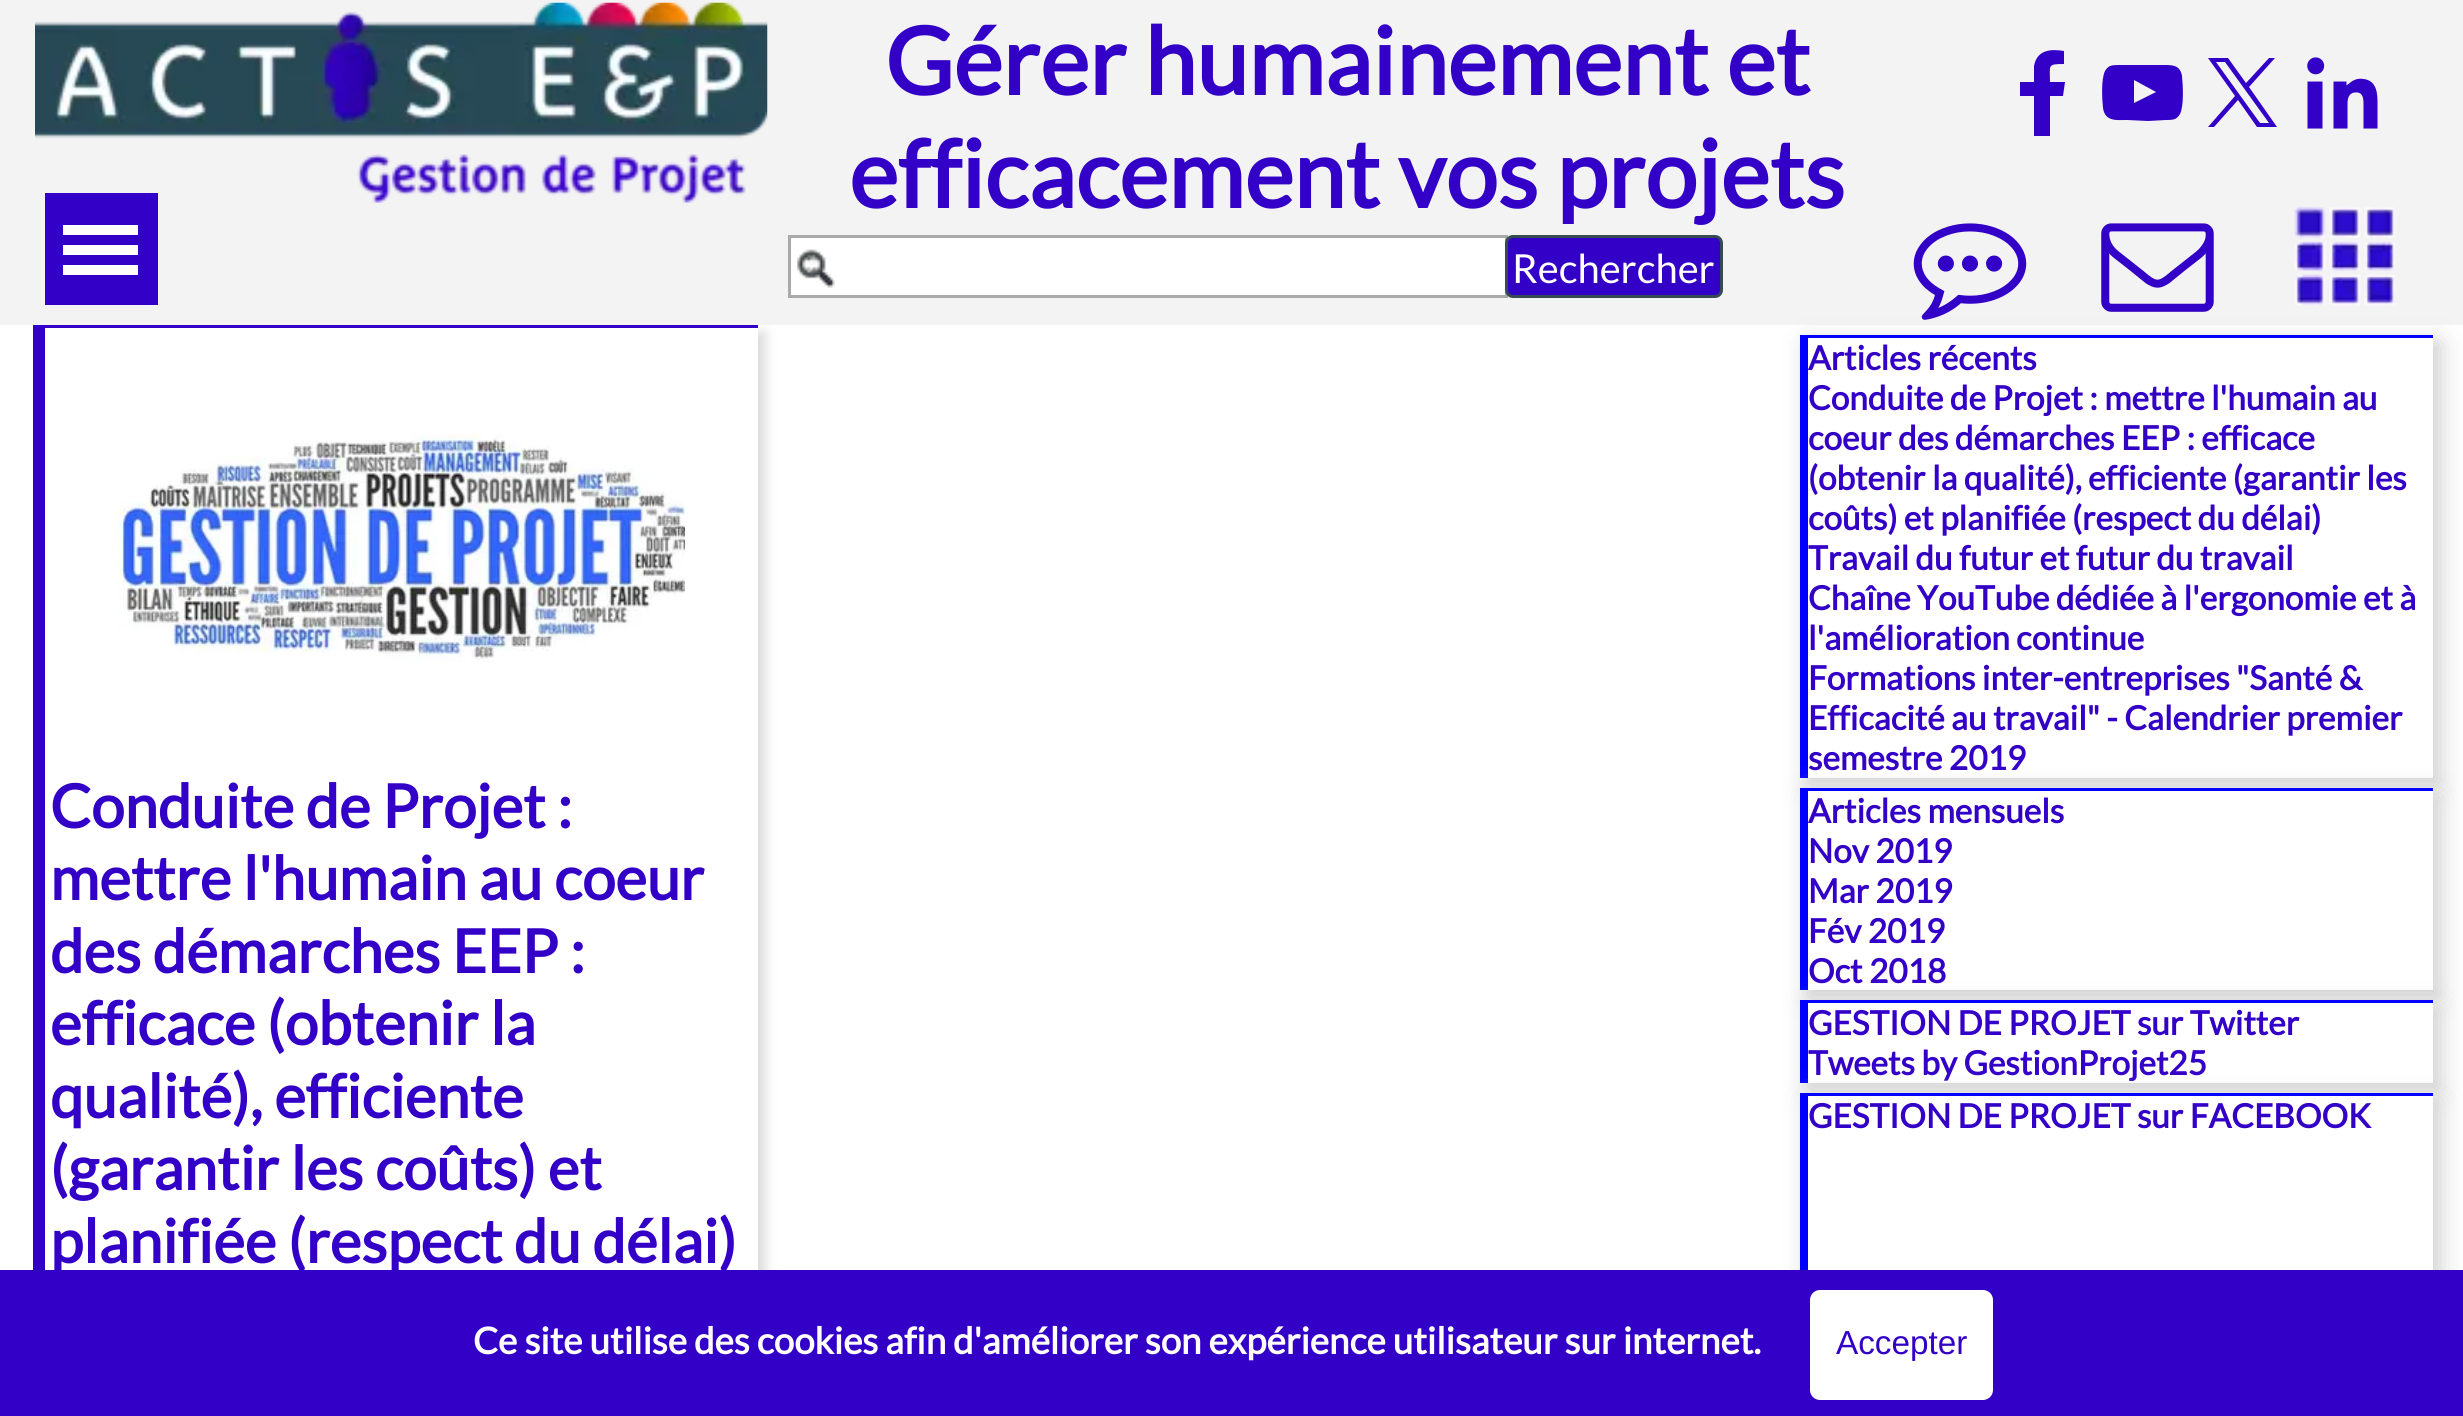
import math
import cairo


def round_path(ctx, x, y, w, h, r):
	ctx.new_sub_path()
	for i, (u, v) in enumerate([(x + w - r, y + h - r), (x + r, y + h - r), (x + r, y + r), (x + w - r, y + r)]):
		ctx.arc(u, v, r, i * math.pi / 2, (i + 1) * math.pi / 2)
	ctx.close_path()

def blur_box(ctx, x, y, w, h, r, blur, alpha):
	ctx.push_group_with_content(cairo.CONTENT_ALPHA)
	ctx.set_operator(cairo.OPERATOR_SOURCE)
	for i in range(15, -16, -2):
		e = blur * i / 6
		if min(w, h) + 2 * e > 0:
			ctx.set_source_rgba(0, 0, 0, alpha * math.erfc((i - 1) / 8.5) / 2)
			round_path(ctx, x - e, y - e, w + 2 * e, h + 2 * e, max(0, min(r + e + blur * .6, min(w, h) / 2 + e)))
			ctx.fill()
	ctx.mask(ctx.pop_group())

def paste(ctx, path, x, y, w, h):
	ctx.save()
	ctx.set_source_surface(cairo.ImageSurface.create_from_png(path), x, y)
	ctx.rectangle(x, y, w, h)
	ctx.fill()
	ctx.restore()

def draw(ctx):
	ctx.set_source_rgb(1, 1, 1)
	ctx.paint()
	ctx.set_source_rgb(0.953, 0.953, 0.953)
	ctx.rectangle(0, 0, 2463, 325)
	ctx.fill()
	paste(ctx, 'media/1.png', 35, 2, 733, 201)
	ctx.select_font_face('Lato', cairo.FONT_SLANT_NORMAL, cairo.FONT_WEIGHT_BOLD)
	ctx.set_font_size(93.25)
	ctx.set_source_rgb(0.2, 0, 0.78)
	ctx.move_to(885, 95)
	ctx.show_text('Gérer humainement et')
	ctx.move_to(849, 208)
	ctx.show_text('efficacement vos projets')
	ctx.new_path()
	ctx.move_to(2050, 136)
	ctx.line_to(2050, 96)
	ctx.line_to(2063, 96)
	ctx.line_to(2065, 82)
	ctx.line_to(2050, 82)
	ctx.curve_to(2050, 65, 2047, 64, 2064, 64)
	ctx.line_to(2064, 51)
	ctx.curve_to(2052, 49, 2037, 49, 2034, 66)
	ctx.line_to(2034, 82)
	ctx.line_to(2020, 82)
	ctx.line_to(2020, 96)
	ctx.line_to(2034, 96)
	ctx.line_to(2034, 136)
	ctx.close_path()
	ctx.fill()
	ctx.new_path()
	ctx.move_to(2182, 76)
	ctx.curve_to(2180, 64, 2171, 65, 2161, 65)
	ctx.line_to(2137, 65)
	ctx.line_to(2119, 65)
	ctx.curve_to(2116, 65, 2113, 65, 2110, 66)
	ctx.curve_to(2108, 67, 2106, 69, 2105, 71)
	ctx.curve_to(2101, 79, 2102, 99, 2103, 108)
	ctx.curve_to(2105, 122, 2117, 120, 2127, 120)
	ctx.line_to(2148, 121)
	ctx.line_to(2166, 120)
	ctx.curve_to(2169, 120, 2172, 120, 2175, 119)
	ctx.curve_to(2177, 118, 2179, 116, 2180, 114)
	ctx.curve_to(2184, 106, 2183, 86, 2182, 76)
	ctx.close_path()
	ctx.move_to(2134, 103)
	ctx.line_to(2134, 80)
	ctx.line_to(2156, 92)
	ctx.close_path()
	ctx.fill()
	ctx.new_path()
	ctx.move_to(2249, 87)
	ctx.line_to(2275, 58)
	ctx.line_to(2269, 58)
	ctx.line_to(2246, 83)
	ctx.line_to(2228, 58)
	ctx.line_to(2208, 58)
	ctx.line_to(2235, 96)
	ctx.line_to(2208, 127)
	ctx.line_to(2214, 127)
	ctx.line_to(2238, 100)
	ctx.line_to(2257, 127)
	ctx.line_to(2277, 127)
	ctx.move_to(2216, 62)
	ctx.line_to(2225, 62)
	ctx.line_to(2269, 123)
	ctx.line_to(2260, 123)
	ctx.fill()
	paste(ctx, 'media/2.png', 2307, 57, 71, 72)
	ctx.rectangle(45, 193, 113, 112)
	ctx.fill()
	ctx.set_source_rgb(1, 1, 1)
	ctx.rectangle(63, 225, 75, 10)
	ctx.rectangle(63, 245, 75, 10)
	ctx.rectangle(63, 265, 75, 10)
	ctx.rectangle(791, 238, 714, 57)
	ctx.fill()
	paste(ctx, 'media/3.png', 796, 249, 39, 39)
	ctx.rectangle(789.5, 236.5, 717, 60)
	ctx.set_source_rgb(0.663, 0.663, 0.663)
	ctx.set_line_width(3)
	ctx.stroke()
	ctx.set_source_rgb(0.2, 0, 0.78)
	round_path(ctx, 1506.5, 236.5, 215, 60, 6.5)
	ctx.fill_preserve()
	ctx.set_source_rgb(0.208, 0.294, 0.329)
	ctx.stroke()
	ctx.select_font_face('Lato')
	ctx.set_font_size(40)
	ctx.set_source_rgb(1, 1, 1)
	ctx.move_to(1512, 283)
	ctx.show_text('Rechercher')
	ctx.set_source_rgb(0.8, 0.8, 0.8)
	blur_box(ctx, 1808, 343, 632, 442, 0, 12.5, 1)
	paste(ctx, 'media/4.png', 1913, 223, 114, 97)
	paste(ctx, 'media/5.png', 2101, 223, 113, 89)
	paste(ctx, 'media/6.png', 2294, 207, 101, 99)
	ctx.save()
	ctx.rectangle(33, 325, 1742, 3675)
	ctx.clip()
	ctx.set_source_rgb(0.851, 0.851, 0.851)
	blur_box(ctx, 40, 333, 725, 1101, 0, 6, 1)
	ctx.restore()
	ctx.set_source_rgb(1, 1, 1)
	ctx.rectangle(45, 328, 713, 942)
	ctx.fill()
	ctx.set_source_rgb(0.2, 0, 0.78)
	ctx.rectangle(45, 325, 713, 3)
	ctx.rectangle(33, 325, 12, 945)
	ctx.fill()
	paste(ctx, 'media/7.png', 117, 434, 568, 228)
	ctx.select_font_face('Lato', cairo.FONT_SLANT_NORMAL, cairo.FONT_WEIGHT_BOLD)
	ctx.set_font_size(60)
	for x, y, s in [
		(50, 828, 'Conduite de Projet :'),
		(50, 900, 'mettre l\'humain au coeur'),
		(50, 973, 'des démarches EEP :'),
		(50, 1045, 'efficace (obtenir la'),
		(50, 1118, 'qualité), efficiente'),
		(50, 1190, '(garantir les coûts) et'),
		(50, 1263, 'planifiée (respect du délai)'),
	]:
		ctx.move_to(x, y)
		ctx.show_text(s)
	ctx.set_source_rgb(1, 1, 1)
	ctx.rectangle(1808, 338, 625, 440)
	ctx.fill()
	ctx.set_source_rgb(0, 0, 1)
	ctx.rectangle(1800, 335, 633, 3)
	ctx.rectangle(1800, 335, 8, 443)
	ctx.fill()
	ctx.set_font_size(33.3)
	ctx.set_source_rgb(0.2, 0, 0.78)
	for x, y, s in [
		(1808, 370, 'Articles récents'),
		(1808, 410, 'Conduite de Projet : mettre l\'humain au'),
		(1808, 450, 'coeur des démarches EEP : efficace'),
		(1808, 490, '(obtenir la qualité), efficiente (garantir les'),
		(1808, 530, 'coûts) et planifiée (respect du délai)'),
		(1808, 570, 'Travail du futur et futur du travail'),
		(1808, 610, 'Chaîne YouTube dédiée à l\'ergonomie et à'),
		(1808, 650, 'l\'amélioration continue'),
		(1808, 690, 'Formations inter-entreprises "Santé &'),
		(1808, 730, 'Efficacité au travail" - Calendrier premier'),
		(1808, 770, 'semestre 2019'),
	]:
		ctx.move_to(x, y)
		ctx.show_text(s)
	ctx.set_source_rgb(0.8, 0.8, 0.8)
	blur_box(ctx, 1808, 795, 632, 203, 0, 12.5, 1)
	ctx.set_source_rgb(1, 1, 1)
	ctx.rectangle(1808, 791, 625, 199)
	ctx.fill()
	ctx.set_source_rgb(0, 0, 1)
	ctx.rectangle(1800, 788, 633, 3)
	ctx.rectangle(1800, 788, 8, 202)
	ctx.fill()
	ctx.set_source_rgb(0.2, 0, 0.78)
	for x, y, s in [
		(1808, 823, 'Articles mensuels'),
		(1808, 863, 'Nov 2019'),
		(1808, 903, 'Mar 2019'),
		(1808, 943, 'Fév 2019'),
		(1808, 983, 'Oct 2018'),
	]:
		ctx.move_to(x, y)
		ctx.show_text(s)
	ctx.set_source_rgb(0.8, 0.8, 0.8)
	blur_box(ctx, 1808, 1008, 632, 82, 0, 12.5, 1)
	ctx.set_source_rgb(1, 1, 1)
	ctx.rectangle(1808, 1003, 625, 80)
	ctx.fill()
	ctx.set_source_rgb(0, 0, 1)
	ctx.rectangle(1800, 1000, 633, 3)
	ctx.rectangle(1800, 1000, 8, 83)
	ctx.fill()
	ctx.set_source_rgb(0.2, 0, 0.78)
	ctx.move_to(1808, 1035)
	ctx.show_text('GESTION DE PROJET sur Twitter')
	ctx.move_to(1808, 1075)
	ctx.show_text('Tweets by GestionProjet25')
	ctx.set_source_rgb(0.8, 0.8, 0.8)
	blur_box(ctx, 1808, 1100, 632, 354, 0, 12.5, 1)
	ctx.set_source_rgb(1, 1, 1)
	ctx.rectangle(1808, 1096, 625, 174)
	ctx.fill()
	ctx.set_source_rgb(0, 0, 1)
	ctx.rectangle(1800, 1093, 633, 3)
	ctx.rectangle(1800, 1093, 8, 177)
	ctx.fill()
	ctx.set_source_rgb(0.2, 0, 0.78)
	ctx.move_to(1808, 1128)
	ctx.show_text('GESTION DE PROJET sur FACEBOOK')
	ctx.rectangle(0, 1270, 2463, 146)
	ctx.fill()
	ctx.set_font_size(36.65)
	ctx.set_source_rgb(1, 1, 1)
	ctx.move_to(473, 1354)
	ctx.show_text('Ce site utilise des cookies afin d\'améliorer son expérience utilisateur sur internet.')
	round_path(ctx, 1810, 1290, 183, 110, 10)
	ctx.fill()
	ctx.select_font_face('Liberation Sans')
	ctx.set_font_size(33.3)
	ctx.set_source_rgb(0.2, 0, 0.78)
	ctx.move_to(1836, 1354)
	ctx.show_text('Accepter')


surface = cairo.ImageSurface(cairo.FORMAT_RGB24, 2463, 1416)
ctx = cairo.Context(surface)
options = cairo.FontOptions()
options.set_hint_metrics(cairo.HINT_METRICS_OFF)
options.set_hint_style(cairo.HINT_STYLE_NONE)
ctx.set_font_options(options)
ctx.set_miter_limit(4)
draw(ctx)
surface.write_to_png('image.png')
